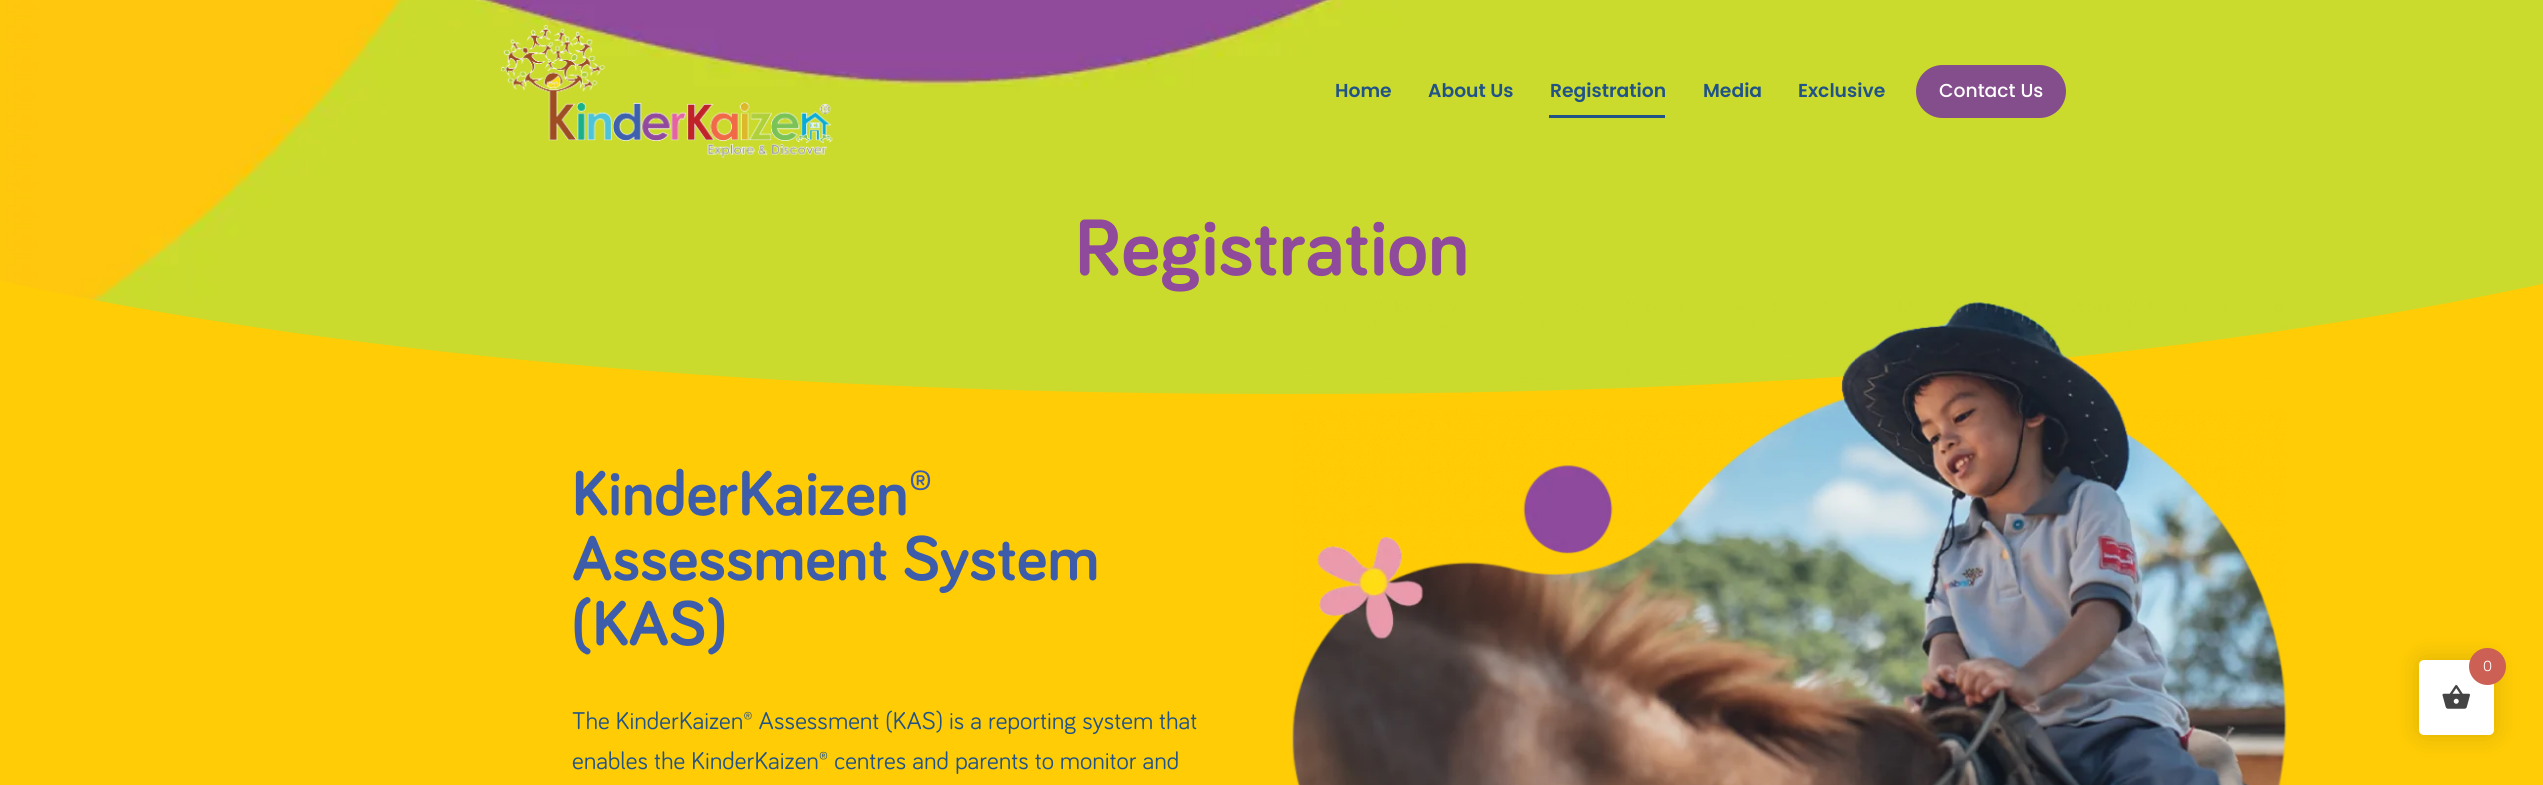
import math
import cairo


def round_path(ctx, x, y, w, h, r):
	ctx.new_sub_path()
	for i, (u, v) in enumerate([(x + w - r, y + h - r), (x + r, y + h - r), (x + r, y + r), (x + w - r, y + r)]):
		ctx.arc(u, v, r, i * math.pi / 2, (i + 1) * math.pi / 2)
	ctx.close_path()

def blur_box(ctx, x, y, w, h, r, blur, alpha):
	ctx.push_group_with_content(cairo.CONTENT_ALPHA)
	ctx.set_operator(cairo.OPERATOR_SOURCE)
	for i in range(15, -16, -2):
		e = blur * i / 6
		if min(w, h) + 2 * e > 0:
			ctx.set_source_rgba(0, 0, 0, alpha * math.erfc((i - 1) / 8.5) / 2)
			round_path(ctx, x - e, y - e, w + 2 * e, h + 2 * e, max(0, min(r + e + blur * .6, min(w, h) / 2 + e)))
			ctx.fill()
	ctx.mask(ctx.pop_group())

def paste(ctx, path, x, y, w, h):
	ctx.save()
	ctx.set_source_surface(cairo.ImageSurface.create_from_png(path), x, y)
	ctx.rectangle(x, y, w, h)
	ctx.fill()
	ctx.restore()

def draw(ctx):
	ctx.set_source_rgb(1, 1, 1)
	ctx.paint()
	paste(ctx, 'media/2.png', 0, 0, 2543, 394)
	paste(ctx, 'media/1.png', 500, 24, 333, 134)
	ctx.select_font_face('Poppins SemiBold')
	ctx.set_font_size(18.75)
	ctx.set_source_rgb(0.129, 0.325, 0.529)
	for x, y, s in [
		(1335, 97, 'Home'),
		(1428, 97, 'About Us'),
		(1550, 97, 'Registration'),
	]:
		ctx.move_to(x, y)
		ctx.show_text(s)
	ctx.rectangle(1549, 115, 116, 3)
	ctx.fill()
	ctx.move_to(1703, 97)
	ctx.show_text('Media')
	ctx.move_to(1798, 97)
	ctx.show_text('Exclusive')
	ctx.set_source_rgb(0.518, 0.302, 0.549)
	round_path(ctx, 1916, 65, 150, 53, 26.5)
	ctx.fill()
	ctx.select_font_face('Poppins Medium')
	ctx.set_source_rgb(1, 1, 1)
	ctx.move_to(1939, 97)
	ctx.show_text('Contact Us')
	ctx.set_source_rgb(1, 0.8, 0.02)
	ctx.new_path()
	ctx.move_to(1273, 394)
	ctx.curve_to(-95, 392, -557, 111, -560, 39)
	ctx.line_to(-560, 405)
	ctx.line_to(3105, 405)
	ctx.line_to(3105, 42)
	ctx.curve_to(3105, 110, 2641, 397, 1273, 394)
	ctx.close_path()
	ctx.fill()
	ctx.select_font_face('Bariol', cairo.FONT_SLANT_NORMAL, cairo.FONT_WEIGHT_BOLD)
	ctx.set_font_size(82.5)
	ctx.set_source_rgb(0.561, 0.29, 0.612)
	ctx.move_to(1075, 275)
	ctx.show_text('Registration')
	ctx.set_source_rgb(1, 0.8, 0.02)
	ctx.rectangle(0, 405, 2543, 380)
	ctx.fill()
	ctx.set_font_size(65)
	ctx.set_source_rgb(0.239, 0.365, 0.667)
	for x, y, s in [
		(572, 515, 'KinderKaizen®'),
		(572, 580, 'Assessment System'),
		(572, 645, '(KAS)'),
	]:
		ctx.move_to(x, y)
		ctx.show_text(s)
	ctx.select_font_face('Bariol')
	ctx.set_font_size(25)
	ctx.set_source_rgb(0.129, 0.325, 0.529)
	ctx.move_to(572, 729)
	ctx.show_text('The KinderKaizen® Assessment (KAS) is a reporting system that')
	ctx.move_to(572, 769)
	ctx.show_text('enables the KinderKaizen® centres and parents to monitor and')
	paste(ctx, 'media/3.png', 1292, 301, 995, 484)
	ctx.set_source_rgb(0, 0, 0)
	blur_box(ctx, 2419, 660, 75, 75, 5, 12.5, 0.15)
	ctx.set_source_rgb(1, 1, 1)
	round_path(ctx, 2419, 660, 75, 75, 5)
	ctx.fill()
	ctx.set_source_rgb(0.8, 0.376, 0.333)
	ctx.arc(2487.5, 666.5, 18.5, 0, 2 * math.pi)
	ctx.fill()
	ctx.set_font_size(15)
	ctx.set_source_rgb(1, 1, 1)
	ctx.move_to(2483, 671)
	ctx.show_text('0')
	paste(ctx, 'media/4.png', 2442, 685, 28, 24)


surface = cairo.ImageSurface(cairo.FORMAT_RGB24, 2543, 785)
ctx = cairo.Context(surface)
options = cairo.FontOptions()
options.set_hint_metrics(cairo.HINT_METRICS_OFF)
options.set_hint_style(cairo.HINT_STYLE_NONE)
ctx.set_font_options(options)
ctx.set_miter_limit(4)
draw(ctx)
surface.write_to_png('image.png')
